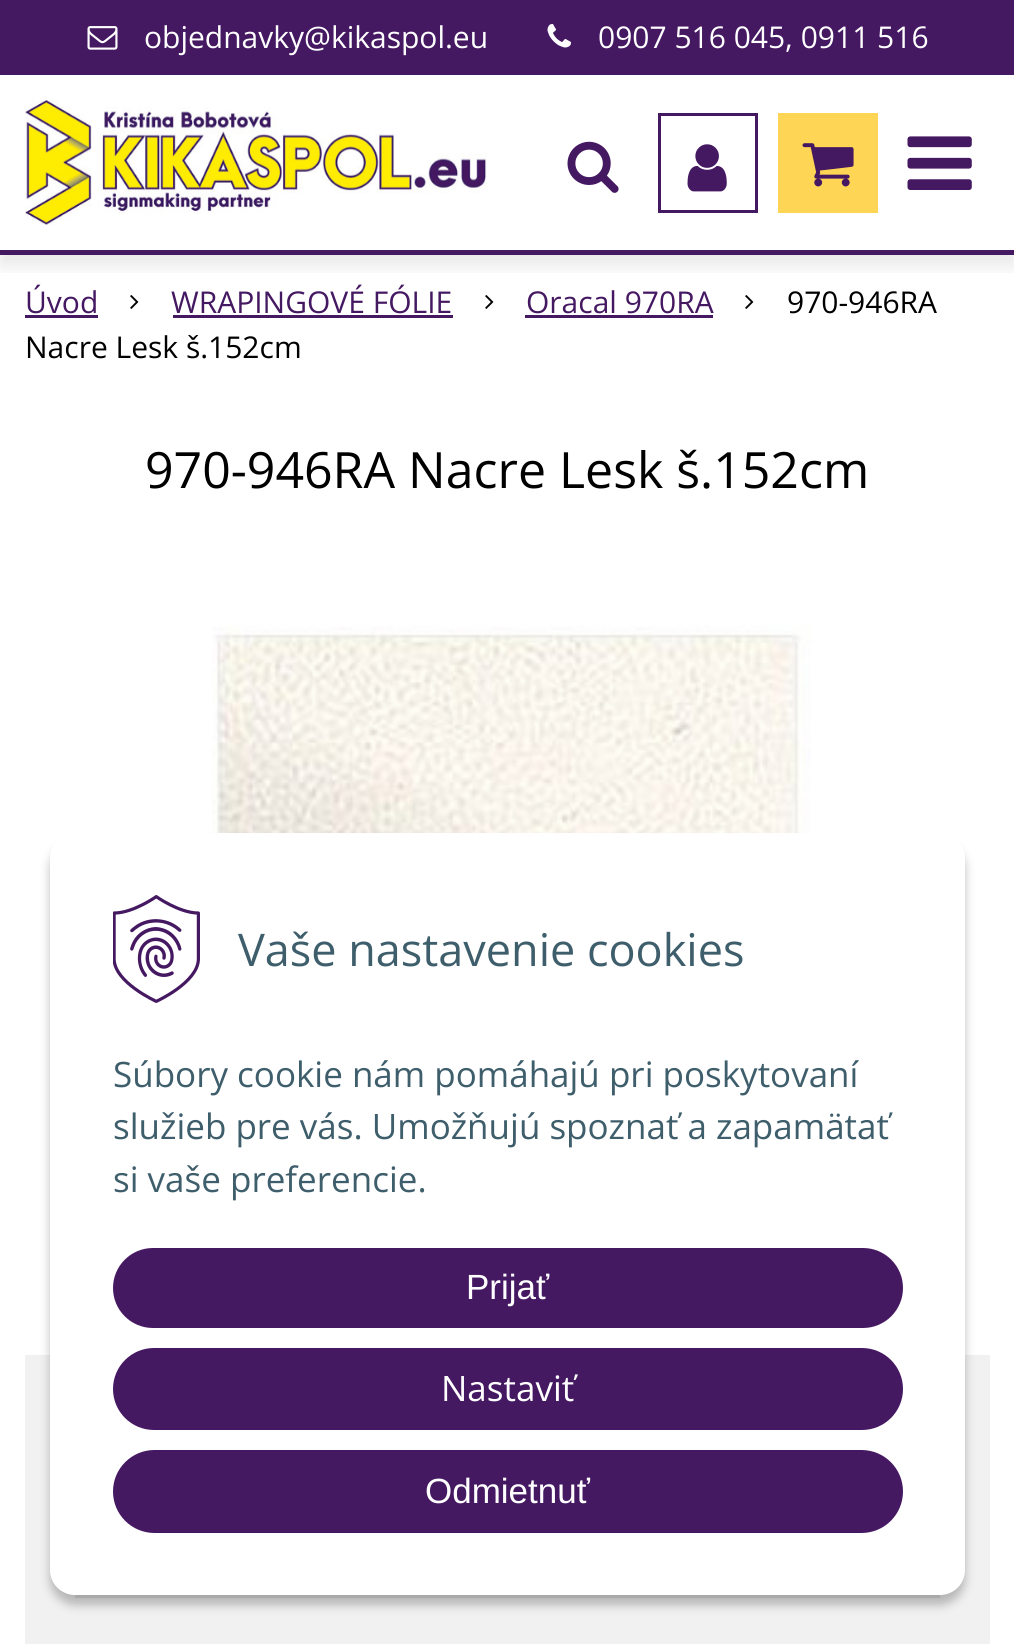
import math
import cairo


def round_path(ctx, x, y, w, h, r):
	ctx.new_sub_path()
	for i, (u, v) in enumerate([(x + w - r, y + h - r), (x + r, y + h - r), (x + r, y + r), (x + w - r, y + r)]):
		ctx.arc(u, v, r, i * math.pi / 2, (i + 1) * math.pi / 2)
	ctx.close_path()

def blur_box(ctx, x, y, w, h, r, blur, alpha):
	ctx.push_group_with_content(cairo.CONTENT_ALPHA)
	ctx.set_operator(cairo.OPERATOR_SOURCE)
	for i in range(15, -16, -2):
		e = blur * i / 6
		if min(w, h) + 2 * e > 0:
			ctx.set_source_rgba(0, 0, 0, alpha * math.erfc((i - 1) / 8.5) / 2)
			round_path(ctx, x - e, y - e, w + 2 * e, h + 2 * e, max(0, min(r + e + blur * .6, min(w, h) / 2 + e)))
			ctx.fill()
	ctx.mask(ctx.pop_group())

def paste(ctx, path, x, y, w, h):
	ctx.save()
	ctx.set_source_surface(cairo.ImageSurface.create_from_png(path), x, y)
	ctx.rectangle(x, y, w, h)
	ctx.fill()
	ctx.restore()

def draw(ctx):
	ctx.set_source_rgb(1, 1, 1)
	ctx.paint()
	paste(ctx, 'media/8.png', 130, 295, 9, 14)
	paste(ctx, 'media/8.png', 485, 295, 9, 14)
	paste(ctx, 'media/8.png', 745, 295, 9, 14)
	ctx.save()
	ctx.rectangle(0, 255, 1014, 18)
	ctx.clip()
	ctx.set_source_rgb(0, 0, 0)
	blur_box(ctx, 0, 10, 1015, 255, 0, 10, 0.1)
	ctx.restore()
	ctx.set_source_rgb(0.271, 0.094, 0.384)
	ctx.rectangle(0, 250, 1014, 5)
	ctx.fill()
	ctx.rectangle(0, 0, 1014, 75)
	ctx.fill()
	paste(ctx, 'media/1.png', 87, 26, 31, 24)
	ctx.select_font_face('Open Sans')
	ctx.set_font_size(30)
	ctx.set_source_rgb(1, 1, 1)
	ctx.move_to(144, 48)
	ctx.show_text('objednavky@kikaspol.eu')
	paste(ctx, 'media/2.png', 547, 23, 25, 25)
	ctx.move_to(598, 48)
	ctx.show_text('0907 516 045, 0911 516')
	paste(ctx, 'media/3.png', 25, 100, 462, 125)
	paste(ctx, 'media/4.png', 567, 141, 52, 52)
	ctx.rectangle(659.5, 114.5, 97, 97)
	ctx.set_source_rgb(0.271, 0.094, 0.384)
	ctx.set_line_width(3)
	ctx.stroke()
	paste(ctx, 'media/5.png', 687, 144, 40, 48)
	ctx.set_source_rgb(1, 0.835, 0.333)
	ctx.rectangle(778, 113, 100, 100)
	ctx.fill()
	paste(ctx, 'media/6.png', 802, 143, 52, 44)
	paste(ctx, 'media/7.png', 907, 136, 65, 54)
	ctx.set_source_rgb(0.271, 0.094, 0.384)
	ctx.move_to(25, 313)
	ctx.show_text('Úvod')
	ctx.rectangle(25, 315, 73, 3)
	ctx.fill()
	ctx.move_to(171, 313)
	ctx.show_text('WRAPINGOVÉ FÓLIE')
	ctx.rectangle(173, 315, 280, 3)
	ctx.fill()
	ctx.move_to(526, 313)
	ctx.show_text('Oracal 970RA')
	ctx.rectangle(525, 315, 188, 3)
	ctx.fill()
	ctx.set_source_rgb(0, 0, 0)
	ctx.move_to(787, 313)
	ctx.show_text('970-946RA')
	ctx.move_to(25, 358)
	ctx.show_text('Nacre Lesk š.152cm')
	ctx.set_font_size(50)
	ctx.move_to(145, 488)
	ctx.show_text('970-946RA Nacre Lesk š.152cm')
	paste(ctx, 'media/9.png', 212, 625, 600, 208)
	ctx.set_source_rgb(0.945, 0.945, 0.945)
	ctx.rectangle(25, 1355, 965, 289)
	ctx.fill()
	ctx.set_source_rgb(0.867, 0.867, 0.867)
	ctx.rectangle(75, 1595, 865, 3)
	ctx.fill()
	ctx.set_source_rgb(0, 0, 0)
	blur_box(ctx, 50, 843, 915, 762, 25, 5, 0.25)
	ctx.set_source_rgb(1, 1, 1)
	round_path(ctx, 50, 833, 915, 762, 25)
	ctx.fill()
	paste(ctx, 'media/10.png', 113, 895, 87, 108)
	ctx.set_font_size(45)
	ctx.set_source_rgb(0.247, 0.369, 0.424)
	ctx.move_to(238, 966)
	ctx.show_text('Vaše nastavenie cookies')
	ctx.set_font_size(35)
	for x, y, s in [
		(113, 1087, 'Súbory cookie nám pomáhajú pri poskytovaní'),
		(113, 1139, 'služieb pre vás. Umožňujú spoznať a zapamätať'),
		(113, 1192, 'si vaše preferencie.'),
	]:
		ctx.move_to(x, y)
		ctx.show_text(s)
	ctx.set_source_rgb(0.271, 0.094, 0.384)
	round_path(ctx, 114.5, 1249.5, 787, 77, 38.5)
	ctx.fill_preserve()
	ctx.stroke()
	ctx.select_font_face('Liberation Sans')
	ctx.set_source_rgb(1, 1, 1)
	ctx.move_to(466, 1299)
	ctx.show_text('Prijať')
	ctx.set_source_rgb(0.271, 0.094, 0.384)
	round_path(ctx, 114.5, 1349.5, 787, 79, 39.5)
	ctx.fill_preserve()
	ctx.stroke()
	ctx.select_font_face('Open Sans')
	ctx.set_source_rgb(1, 1, 1)
	ctx.move_to(441, 1401)
	ctx.show_text('Nastaviť')
	ctx.set_source_rgb(0.271, 0.094, 0.384)
	round_path(ctx, 114.5, 1451.5, 787, 80, 40)
	ctx.fill_preserve()
	ctx.stroke()
	ctx.select_font_face('Liberation Sans')
	ctx.set_source_rgb(1, 1, 1)
	ctx.move_to(425, 1503)
	ctx.show_text('Odmietnuť')


surface = cairo.ImageSurface(cairo.FORMAT_RGB24, 1014, 1644)
ctx = cairo.Context(surface)
options = cairo.FontOptions()
options.set_hint_metrics(cairo.HINT_METRICS_OFF)
options.set_hint_style(cairo.HINT_STYLE_NONE)
ctx.set_font_options(options)
ctx.set_miter_limit(4)
draw(ctx)
surface.write_to_png('image.png')
